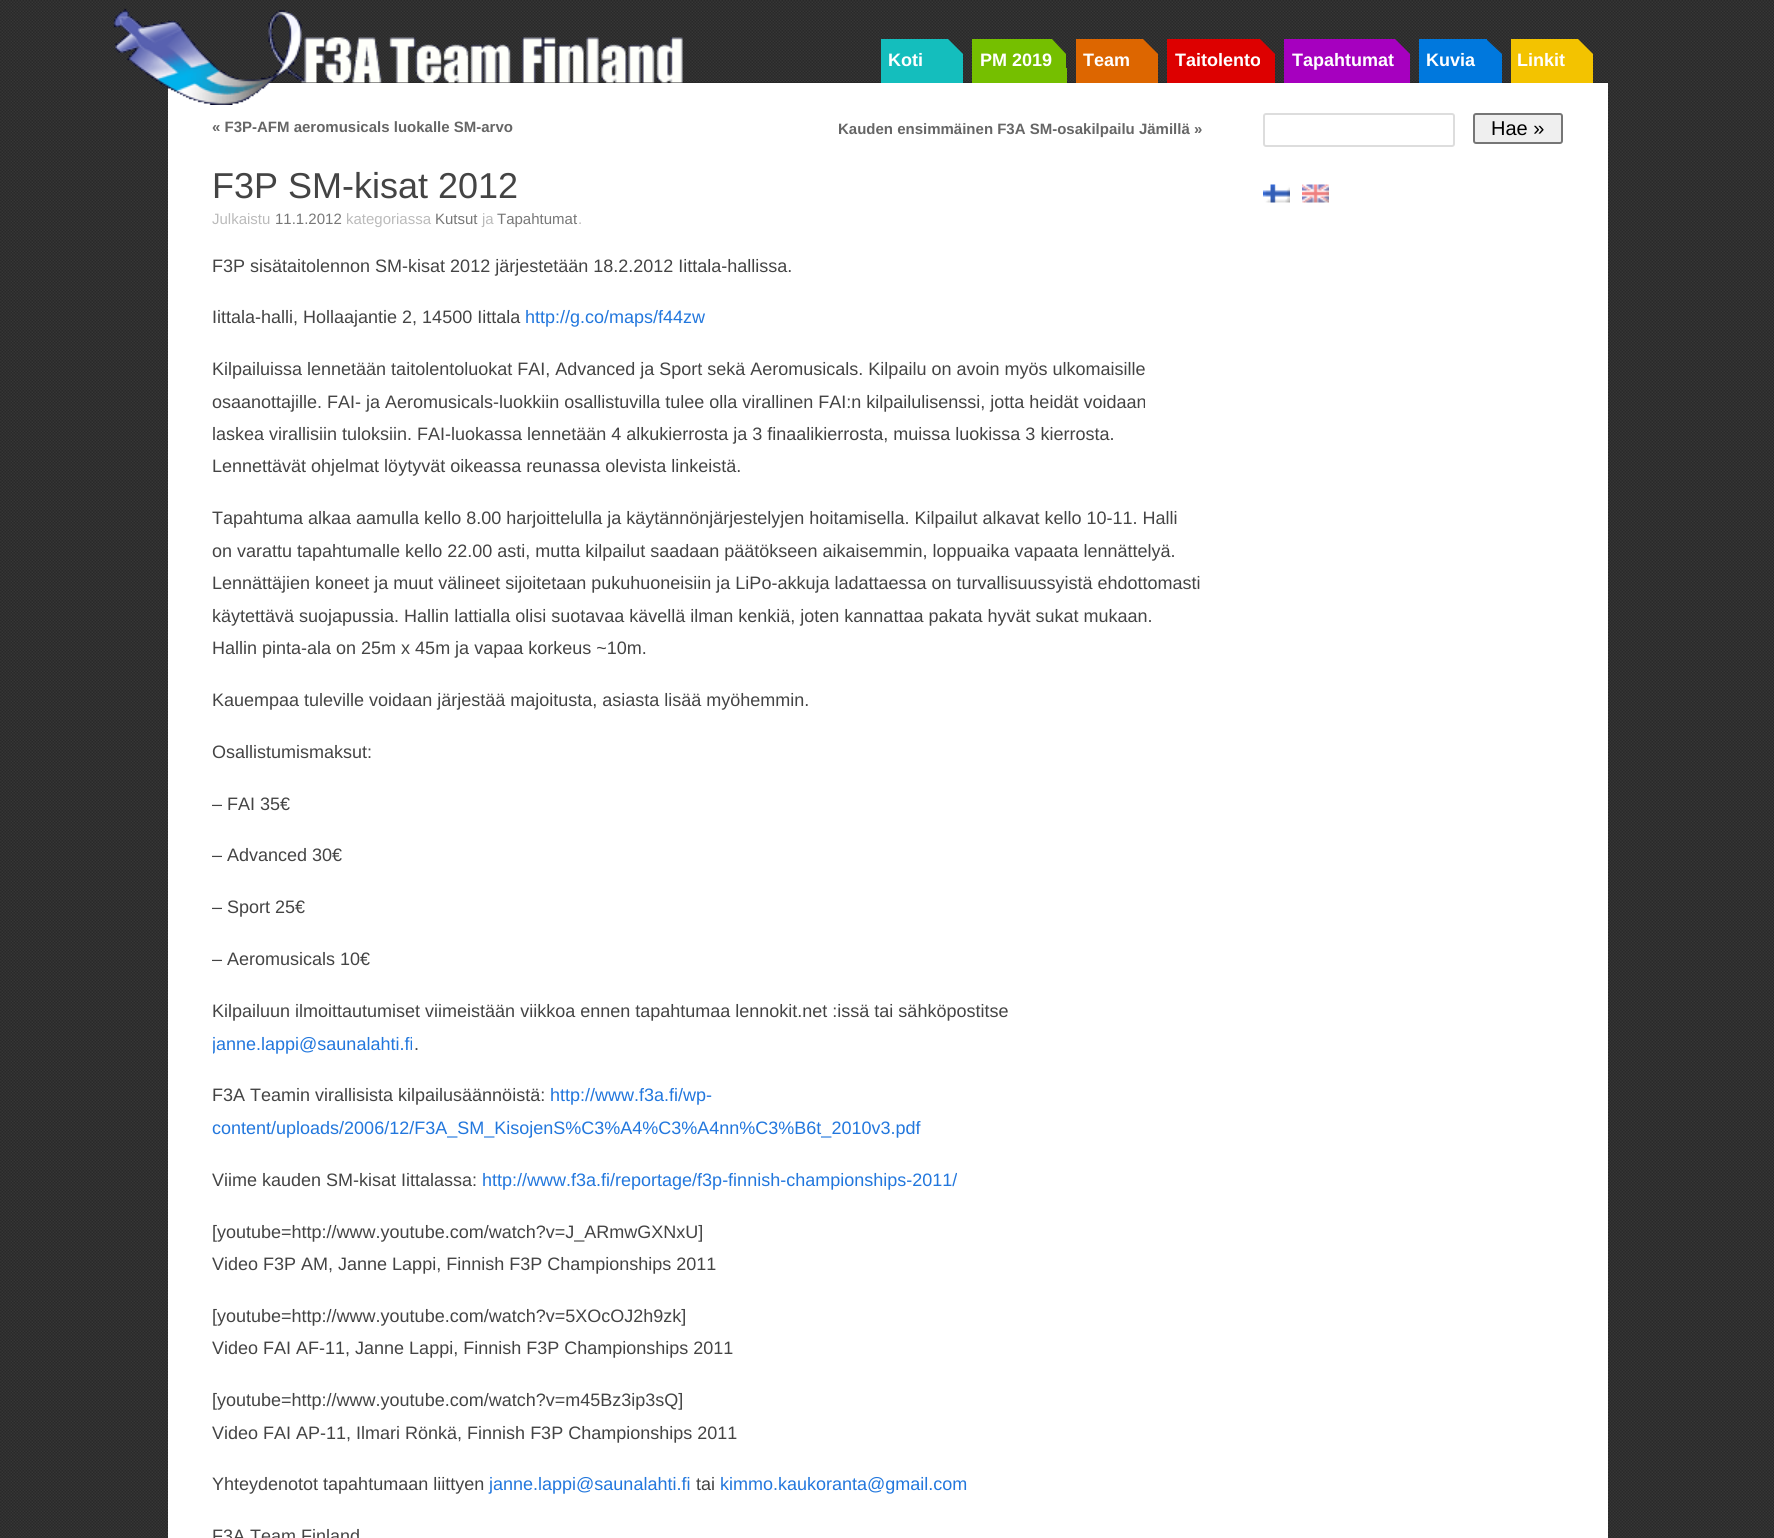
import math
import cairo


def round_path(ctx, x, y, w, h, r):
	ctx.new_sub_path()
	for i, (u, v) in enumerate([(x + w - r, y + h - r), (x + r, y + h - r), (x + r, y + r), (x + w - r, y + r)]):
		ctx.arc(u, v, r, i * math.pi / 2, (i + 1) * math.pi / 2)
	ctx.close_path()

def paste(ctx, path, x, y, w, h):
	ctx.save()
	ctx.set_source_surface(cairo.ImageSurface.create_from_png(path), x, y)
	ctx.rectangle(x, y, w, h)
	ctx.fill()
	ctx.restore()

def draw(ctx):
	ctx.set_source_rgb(1, 1, 1)
	ctx.paint()
	paste(ctx, 'media/1.png', 0, 0, 1774, 1538)
	ctx.set_source_rgb(1, 1, 1)
	ctx.rectangle(168, 83, 1440, 1455)
	ctx.fill()
	ctx.set_source_rgb(0.133, 0.133, 0.133)
	ctx.rectangle(268, 82, 1340, 1)
	ctx.fill()
	paste(ctx, 'media/2.png', 168, 0, 1440, 83)
	paste(ctx, 'media/3.png', 113, 8, 570, 97)
	ctx.set_source_rgb(0.082, 0.745, 0.741)
	ctx.rectangle(881, 39, 67, 44)
	ctx.fill()
	ctx.select_font_face('Liberation Sans', cairo.FONT_SLANT_NORMAL, cairo.FONT_WEIGHT_BOLD)
	ctx.set_font_size(18)
	ctx.set_source_rgb(1, 1, 1)
	ctx.move_to(888, 66)
	ctx.show_text('Koti')
	ctx.set_source_rgb(0.082, 0.745, 0.741)
	ctx.rectangle(948, 68, 15, 15)
	ctx.fill()
	ctx.new_path()
	ctx.move_to(948, 82)
	ctx.line_to(948, 39)
	ctx.line_to(963, 54)
	ctx.line_to(963, 68)
	ctx.close_path()
	ctx.fill()
	ctx.set_source_rgb(0.459, 0.749, 0)
	ctx.rectangle(972, 39, 80, 44)
	ctx.fill()
	ctx.set_source_rgb(1, 1, 1)
	ctx.move_to(980, 66)
	ctx.show_text('PM 2019')
	ctx.set_source_rgb(0.459, 0.749, 0)
	ctx.rectangle(1052, 68, 15, 15)
	ctx.fill()
	ctx.new_path()
	ctx.move_to(1052, 82)
	ctx.line_to(1052, 39)
	ctx.line_to(1066, 54)
	ctx.line_to(1066, 68)
	ctx.close_path()
	ctx.fill()
	ctx.set_source_rgb(0.867, 0.4, 0)
	ctx.rectangle(1076, 39, 67, 44)
	ctx.fill()
	ctx.set_source_rgb(1, 1, 1)
	ctx.move_to(1083, 66)
	ctx.show_text('Team')
	ctx.set_source_rgb(0.867, 0.4, 0)
	ctx.rectangle(1143, 68, 15, 15)
	ctx.fill()
	ctx.new_path()
	ctx.move_to(1143, 82)
	ctx.line_to(1143, 39)
	ctx.line_to(1158, 54)
	ctx.line_to(1158, 68)
	ctx.close_path()
	ctx.fill()
	ctx.set_source_rgb(0.867, 0, 0)
	ctx.rectangle(1167, 39, 93, 44)
	ctx.fill()
	ctx.set_source_rgb(1, 1, 1)
	ctx.move_to(1175, 66)
	ctx.show_text('Taitolento')
	ctx.set_source_rgb(0.867, 0, 0)
	ctx.rectangle(1260, 68, 15, 15)
	ctx.fill()
	ctx.new_path()
	ctx.move_to(1260, 82)
	ctx.line_to(1260, 39)
	ctx.line_to(1275, 54)
	ctx.line_to(1275, 68)
	ctx.close_path()
	ctx.fill()
	ctx.set_source_rgb(0.651, 0, 0.749)
	ctx.rectangle(1284, 39, 111, 44)
	ctx.fill()
	ctx.set_source_rgb(1, 1, 1)
	ctx.move_to(1292, 66)
	ctx.show_text('Tapahtumat')
	ctx.set_source_rgb(0.651, 0, 0.749)
	ctx.rectangle(1395, 68, 15, 15)
	ctx.fill()
	ctx.new_path()
	ctx.move_to(1395, 82)
	ctx.line_to(1395, 39)
	ctx.line_to(1410, 54)
	ctx.line_to(1410, 68)
	ctx.close_path()
	ctx.fill()
	ctx.set_source_rgb(0, 0.471, 0.867)
	ctx.rectangle(1419, 39, 68, 44)
	ctx.fill()
	ctx.set_source_rgb(1, 1, 1)
	ctx.move_to(1426, 66)
	ctx.show_text('Kuvia')
	ctx.set_source_rgb(0, 0.471, 0.867)
	ctx.rectangle(1487, 68, 15, 15)
	ctx.fill()
	ctx.new_path()
	ctx.move_to(1486, 82)
	ctx.line_to(1486, 39)
	ctx.line_to(1502, 54)
	ctx.line_to(1502, 68)
	ctx.close_path()
	ctx.fill()
	ctx.set_source_rgb(0.953, 0.765, 0)
	ctx.rectangle(1511, 39, 67, 44)
	ctx.fill()
	ctx.set_source_rgb(1, 1, 1)
	ctx.move_to(1517, 66)
	ctx.show_text('Linkit')
	ctx.set_source_rgb(0.953, 0.765, 0)
	ctx.rectangle(1578, 68, 15, 15)
	ctx.fill()
	ctx.new_path()
	ctx.move_to(1578, 82)
	ctx.line_to(1578, 39)
	ctx.line_to(1593, 54)
	ctx.line_to(1593, 68)
	ctx.close_path()
	ctx.fill()
	ctx.set_font_size(15)
	ctx.set_source_rgb(0.4, 0.4, 0.4)
	ctx.move_to(212, 132)
	ctx.show_text('« F3P-AFM aeromusicals luokalle SM-arvo')
	ctx.move_to(838, 134)
	ctx.show_text('Kauden ensimmäinen F3A SM-osakilpailu Jämillä »')
	ctx.select_font_face('Liberation Sans')
	ctx.set_font_size(36)
	ctx.set_source_rgb(0.267, 0.267, 0.267)
	ctx.move_to(212, 198)
	ctx.show_text('F3P SM-kisat 2012')
	ctx.set_font_size(15)
	ctx.set_source_rgb(0.733, 0.733, 0.733)
	ctx.move_to(212, 224)
	ctx.show_text('Julkaistu')
	ctx.set_source_rgb(0.467, 0.467, 0.467)
	ctx.move_to(275, 224)
	ctx.show_text('11.1.2012')
	ctx.set_source_rgb(0.733, 0.733, 0.733)
	ctx.move_to(346, 224)
	ctx.show_text('kategoriassa')
	ctx.set_source_rgb(0.467, 0.467, 0.467)
	ctx.move_to(435, 224)
	ctx.show_text('Kutsut')
	ctx.set_source_rgb(0.733, 0.733, 0.733)
	ctx.move_to(482, 224)
	ctx.show_text('ja')
	ctx.set_source_rgb(0.467, 0.467, 0.467)
	ctx.move_to(497, 224)
	ctx.show_text('Tapahtumat')
	ctx.set_source_rgb(0.733, 0.733, 0.733)
	ctx.move_to(578, 224)
	ctx.show_text('.')
	ctx.set_font_size(18)
	ctx.set_source_rgb(0.267, 0.267, 0.267)
	ctx.move_to(212, 272)
	ctx.show_text('F3P sisätaitolennon SM-kisat 2012 järjestetään 18.2.2012 Iittala-hallissa.')
	ctx.move_to(212, 323)
	ctx.show_text('Iittala-halli, Hollaajantie 2, 14500 Iittala')
	ctx.set_source_rgb(0.133, 0.467, 0.867)
	ctx.move_to(525, 323)
	ctx.show_text('http://g.co/maps/f44zw')
	ctx.set_source_rgb(0.267, 0.267, 0.267)
	for x, y, s in [
		(212, 375, 'Kilpailuissa lennetään taitolentoluokat FAI, Advanced ja Sport sekä Aeromusicals. Kilpailu on avoin myös ulkomaisille'),
		(212, 408, 'osaanottajille. FAI- ja Aeromusicals-luokkiin osallistuvilla tulee olla virallinen FAI:n kilpailulisenssi, jotta heidät voidaan'),
		(212, 440, 'laskea virallisiin tuloksiin. FAI-luokassa lennetään 4 alkukierrosta ja 3 finaalikierrosta, muissa luokissa 3 kierrosta.'),
		(212, 472, 'Lennettävät ohjelmat löytyvät oikeassa reunassa olevista linkeistä.'),
		(212, 524, 'Tapahtuma alkaa aamulla kello 8.00 harjoittelulla ja käytännönjärjestelyjen hoitamisella. Kilpailut alkavat kello 10-11. Halli'),
		(212, 557, 'on varattu tapahtumalle kello 22.00 asti, mutta kilpailut saadaan päätökseen aikaisemmin, loppuaika vapaata lennättelyä.'),
		(212, 589, 'Lennättäjien koneet ja muut välineet sijoitetaan pukuhuoneisiin ja LiPo-akkuja ladattaessa on turvallisuussyistä ehdottomasti'),
		(212, 622, 'käytettävä suojapussia. Hallin lattialla olisi suotavaa kävellä ilman kenkiä, joten kannattaa pakata hyvät sukat mukaan.'),
		(212, 654, 'Hallin pinta-ala on 25m x 45m ja vapaa korkeus ~10m.'),
		(212, 706, 'Kauempaa tuleville voidaan järjestää majoitusta, asiasta lisää myöhemmin.'),
		(212, 758, 'Osallistumismaksut:'),
		(212, 810, '– FAI 35€'),
		(212, 861, '– Advanced 30€'),
		(212, 913, '– Sport 25€'),
		(212, 965, '– Aeromusicals 10€'),
		(212, 1017, 'Kilpailuun ilmoittautumiset viimeistään viikkoa ennen tapahtumaa lennokit.net :issä tai sähköpostitse'),
	]:
		ctx.move_to(x, y)
		ctx.show_text(s)
	ctx.save()
	ctx.rectangle(213, 996, 990, 65)
	ctx.clip()
	ctx.set_source_rgb(0.133, 0.467, 0.867)
	ctx.move_to(212, 1050)
	ctx.show_text('janne.lappi@saunalahti.fi')
	ctx.restore()
	ctx.move_to(414, 1050)
	ctx.show_text('.')
	ctx.move_to(212, 1101)
	ctx.show_text('F3A Teamin virallisista kilpailusäännöistä:')
	ctx.set_source_rgb(0.133, 0.467, 0.867)
	ctx.move_to(550, 1101)
	ctx.show_text('http://www.f3a.fi/wp-')
	ctx.move_to(212, 1134)
	ctx.show_text('content/uploads/2006/12/F3A_SM_KisojenS%C3%A4%C3%A4nn%C3%B6t_2010v3.pdf')
	ctx.set_source_rgb(0.267, 0.267, 0.267)
	ctx.move_to(212, 1186)
	ctx.show_text('Viime kauden SM-kisat Iittalassa:')
	ctx.set_source_rgb(0.133, 0.467, 0.867)
	ctx.move_to(482, 1186)
	ctx.show_text('http://www.f3a.fi/reportage/f3p-finnish-championships-2011/')
	ctx.set_source_rgb(0.267, 0.267, 0.267)
	for x, y, s in [
		(212, 1238, '[youtube=http://www.youtube.com/watch?v=J_ARmwGXNxU]'),
		(212, 1270, 'Video F3P AM, Janne Lappi, Finnish F3P Championships 2011'),
		(212, 1322, '[youtube=http://www.youtube.com/watch?v=5XOcOJ2h9zk]'),
		(212, 1354, 'Video FAI AF-11, Janne Lappi, Finnish F3P Championships 2011'),
		(212, 1406, '[youtube=http://www.youtube.com/watch?v=m45Bz3ip3sQ]'),
		(212, 1439, 'Video FAI AP-11, Ilmari Rönkä, Finnish F3P Championships 2011'),
		(212, 1490, 'Yhteydenotot tapahtumaan liittyen'),
	]:
		ctx.move_to(x, y)
		ctx.show_text(s)
	ctx.set_source_rgb(0.133, 0.467, 0.867)
	ctx.move_to(489, 1490)
	ctx.show_text('janne.lappi@saunalahti.fi')
	ctx.set_source_rgb(0.267, 0.267, 0.267)
	ctx.move_to(696, 1490)
	ctx.show_text('tai')
	ctx.set_source_rgb(0.133, 0.467, 0.867)
	ctx.move_to(720, 1490)
	ctx.show_text('kimmo.kaukoranta@gmail.com')
	ctx.set_source_rgb(0.267, 0.267, 0.267)
	ctx.move_to(212, 1542)
	ctx.show_text('F3A Team Finland')
	round_path(ctx, 1264, 114, 190, 32, 2)
	ctx.set_source_rgb(0.867, 0.867, 0.867)
	ctx.stroke()
	ctx.set_source_rgb(0.937, 0.937, 0.937)
	round_path(ctx, 1474, 114, 88, 29, 2)
	ctx.fill_preserve()
	ctx.set_source_rgb(0.463, 0.463, 0.463)
	ctx.stroke()
	ctx.set_font_size(20)
	ctx.set_source_rgb(0, 0, 0)
	ctx.move_to(1491, 135)
	ctx.show_text('Hae »')
	paste(ctx, 'media/4.png', 1263, 184, 27, 19)
	paste(ctx, 'media/5.png', 1302, 184, 27, 19)


surface = cairo.ImageSurface(cairo.FORMAT_RGB24, 1774, 1538)
ctx = cairo.Context(surface)
options = cairo.FontOptions()
options.set_hint_metrics(cairo.HINT_METRICS_OFF)
options.set_hint_style(cairo.HINT_STYLE_NONE)
ctx.set_font_options(options)
ctx.set_miter_limit(4)
draw(ctx)
surface.write_to_png('image.png')
